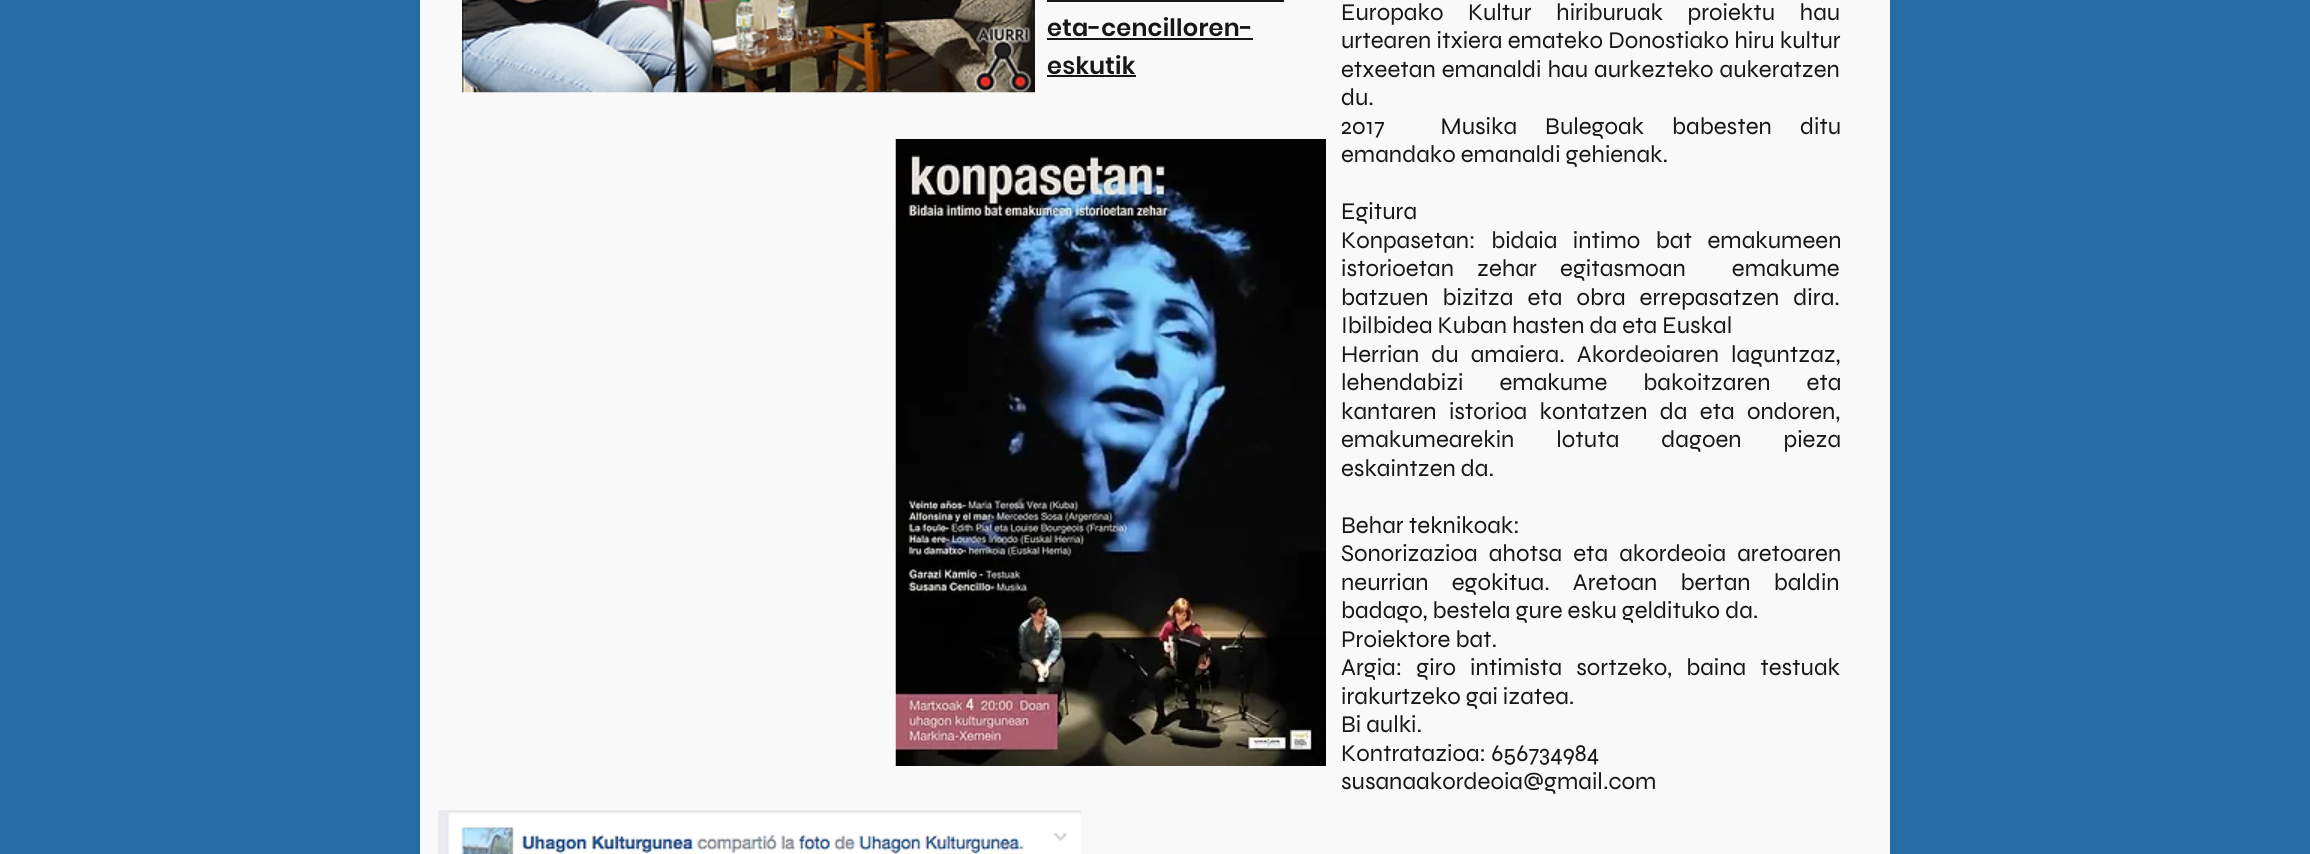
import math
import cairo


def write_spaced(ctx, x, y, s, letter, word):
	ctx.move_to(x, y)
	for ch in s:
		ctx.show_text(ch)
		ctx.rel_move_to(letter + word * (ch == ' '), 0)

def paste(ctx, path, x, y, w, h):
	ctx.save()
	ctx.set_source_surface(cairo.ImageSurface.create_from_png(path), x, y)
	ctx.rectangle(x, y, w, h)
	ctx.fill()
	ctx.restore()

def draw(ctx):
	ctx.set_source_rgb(0.153, 0.42, 0.647)
	ctx.paint()
	ctx.set_source_rgb(0.973, 0.973, 0.973)
	ctx.rectangle(420, 0, 1470, 854)
	ctx.fill()
	paste(ctx, 'media/1.png', 462, 0, 573, 93)
	ctx.select_font_face('Poppins SemiBold')
	ctx.set_font_size(24)
	ctx.set_source_rgb(0.09, 0.09, 0.09)
	write_spaced(ctx, 1047, 36, 'eta-cencilloren-', 0.25, 0)
	ctx.rectangle(1047, 0, 237, 2)
	ctx.fill()
	ctx.rectangle(1047, 38, 206, 2)
	ctx.fill()
	write_spaced(ctx, 1047, 74, 'eskutik', 0.25, 0)
	ctx.rectangle(1047, 75, 89, 2)
	ctx.fill()
	ctx.select_font_face('Syne')
	write_spaced(ctx, 1341, 20, 'Europako Kultur hiriburuak proiektu hau', 0, 19.5)
	write_spaced(ctx, 1341, 48, 'urtearen itxiera emateko Donostiako hiru kultur', 0, 0.25)
	write_spaced(ctx, 1341, 77, 'etxeetan emanaldi hau aurkezteko aukeratzen', 0, 1)
	ctx.move_to(1341, 105)
	ctx.show_text('du.')
	write_spaced(ctx, 1341, 134, '2017  Musika Bulegoak babesten ditu', 0, 23)
	ctx.move_to(1341, 162)
	ctx.show_text('emandako emanaldi gehienak.')
	ctx.move_to(1341, 219)
	ctx.show_text('Egitura')
	write_spaced(ctx, 1341, 248, 'Konpasetan: bidaia intimo bat emakumeen', 0, 10.5)
	write_spaced(ctx, 1341, 276, 'istorioetan zehar egitasmoan  emakume', 0, 18)
	write_spaced(ctx, 1341, 305, 'batzuen bizitza eta obra errepasatzen dira.', 0, 9)
	ctx.move_to(1341, 333)
	ctx.show_text('Ibilbidea Kuban hasten da eta Euskal')
	write_spaced(ctx, 1341, 362, 'Herrian du amaiera. Akordeoiaren laguntzaz,', 0, 7)
	write_spaced(ctx, 1341, 390, 'lehendabizi emakume bakoitzaren eta', 0, 31)
	write_spaced(ctx, 1341, 419, 'kantaren istorioa kontatzen da eta ondoren,', 0, 7.25)
	write_spaced(ctx, 1341, 447, 'emakumearekin lotuta dagoen pieza', 0, 37)
	ctx.move_to(1341, 476)
	ctx.show_text('eskaintzen da.')
	ctx.move_to(1341, 533)
	ctx.show_text('Behar teknikoak:')
	write_spaced(ctx, 1341, 561, 'Sonorizazioa ahotsa eta akordeoia aretoaren', 0, 6)
	write_spaced(ctx, 1341, 590, 'neurrian egokitua. Aretoan bertan baldin', 0, 18)
	ctx.move_to(1341, 618)
	ctx.show_text('badago, bestela gure esku geldituko da.')
	ctx.move_to(1341, 647)
	ctx.show_text('Proiektore bat.')
	write_spaced(ctx, 1341, 675, 'Argia: giro intimista sortzeko, baina testuak', 0, 9)
	for x, y, s in [
		(1341, 704, 'irakurtzeko gai izatea.'),
		(1341, 732, 'Bi aulki.'),
		(1341, 761, 'Kontratazioa: 656734984'),
		(1341, 789, 'susanaakordeoia@gmail.com'),
	]:
		ctx.move_to(x, y)
		ctx.show_text(s)
	paste(ctx, 'media/2.png', 895, 139, 431, 627)
	paste(ctx, 'media/3.png', 438, 810, 643, 44)


surface = cairo.ImageSurface(cairo.FORMAT_RGB24, 2310, 854)
ctx = cairo.Context(surface)
options = cairo.FontOptions()
options.set_hint_metrics(cairo.HINT_METRICS_OFF)
options.set_hint_style(cairo.HINT_STYLE_NONE)
ctx.set_font_options(options)
ctx.set_miter_limit(4)
draw(ctx)
surface.write_to_png('image.png')
